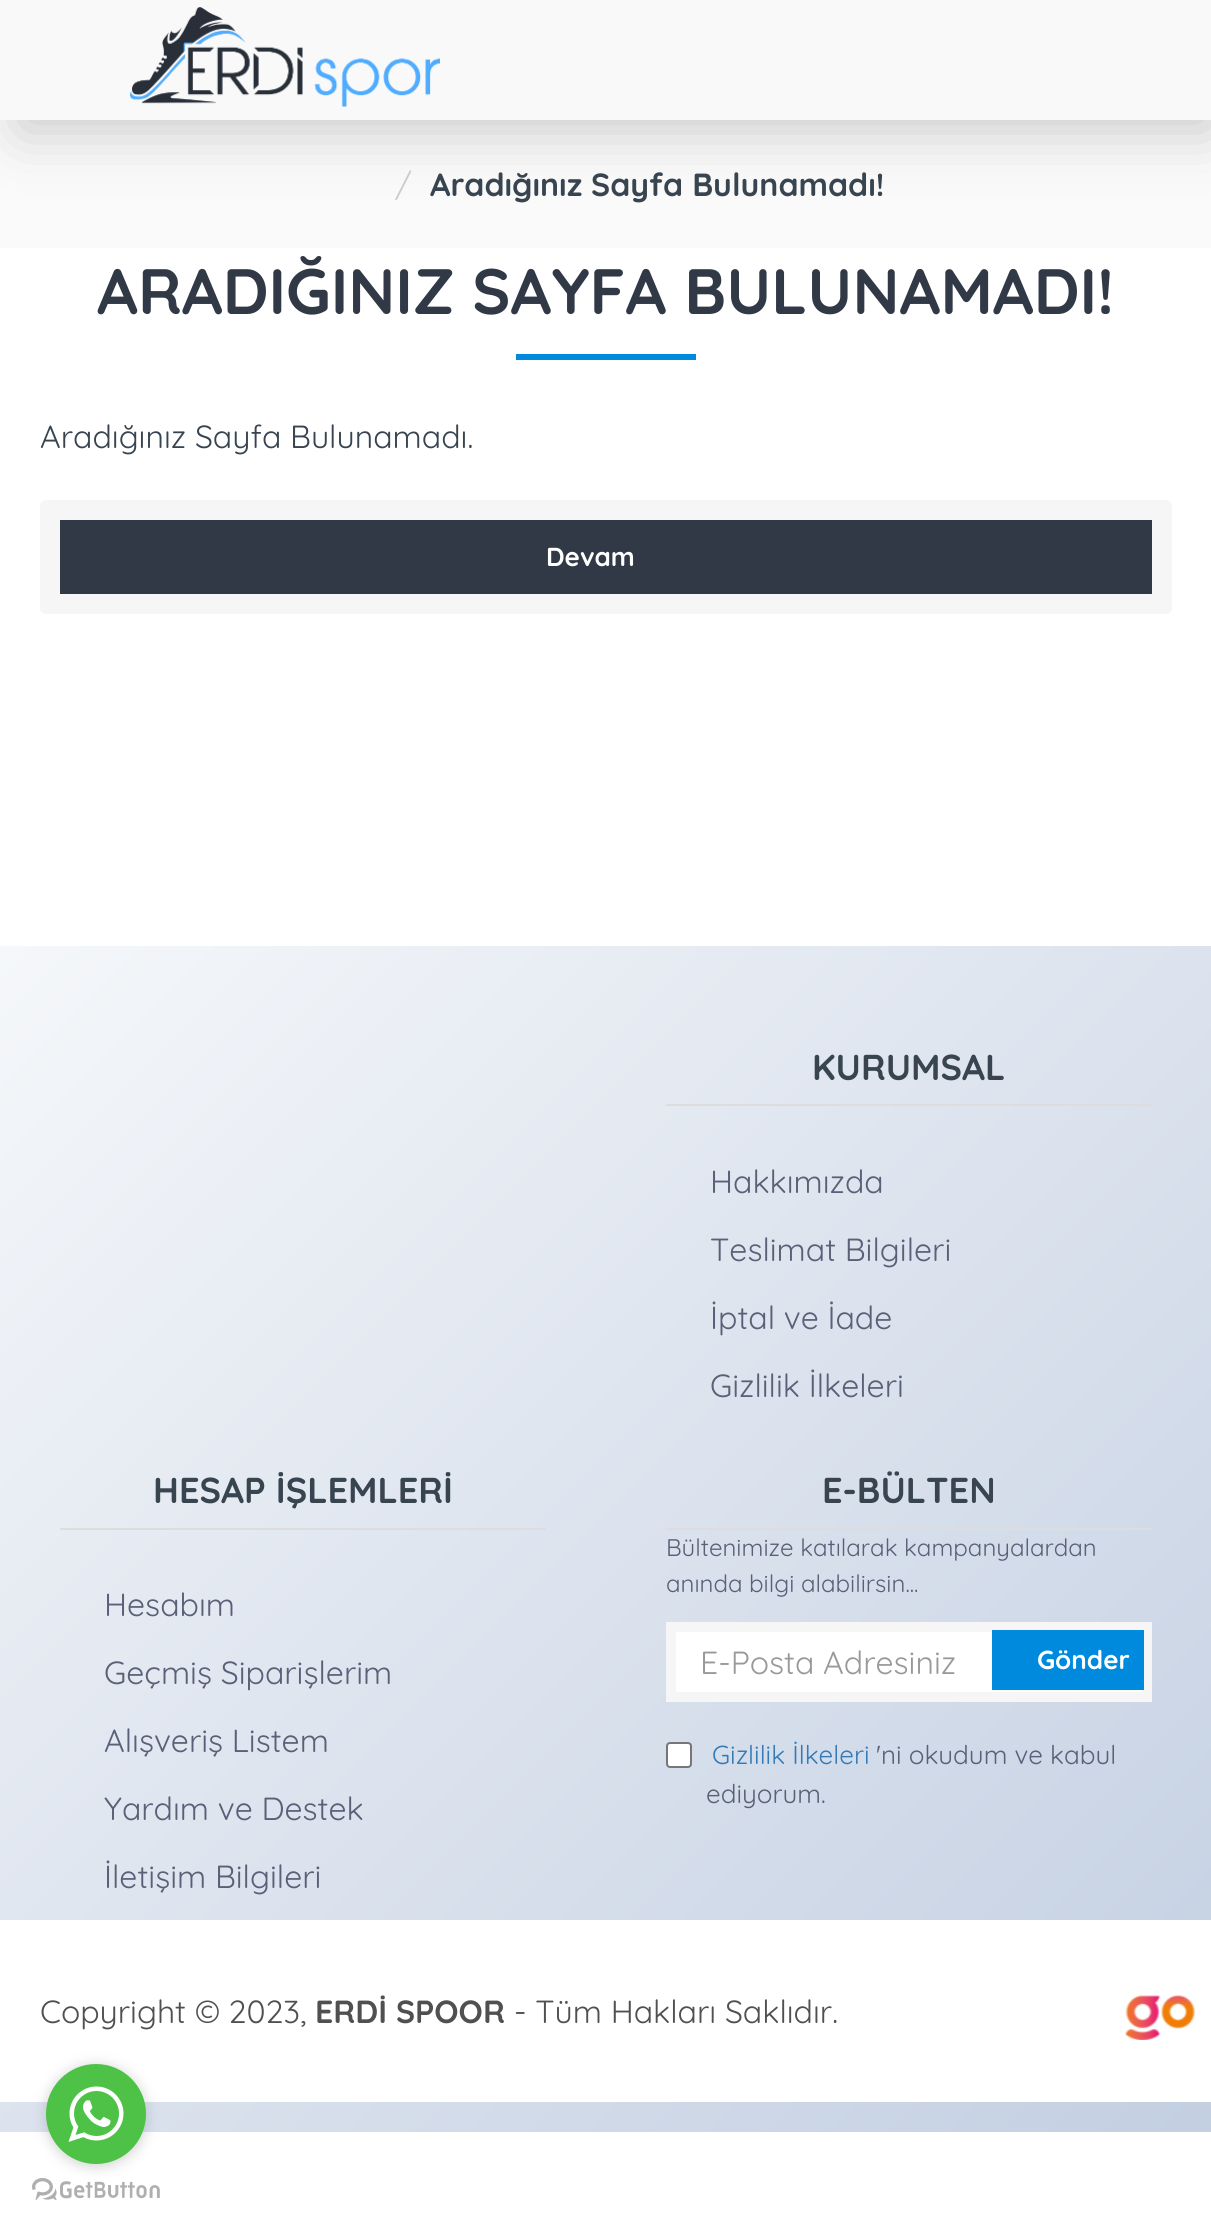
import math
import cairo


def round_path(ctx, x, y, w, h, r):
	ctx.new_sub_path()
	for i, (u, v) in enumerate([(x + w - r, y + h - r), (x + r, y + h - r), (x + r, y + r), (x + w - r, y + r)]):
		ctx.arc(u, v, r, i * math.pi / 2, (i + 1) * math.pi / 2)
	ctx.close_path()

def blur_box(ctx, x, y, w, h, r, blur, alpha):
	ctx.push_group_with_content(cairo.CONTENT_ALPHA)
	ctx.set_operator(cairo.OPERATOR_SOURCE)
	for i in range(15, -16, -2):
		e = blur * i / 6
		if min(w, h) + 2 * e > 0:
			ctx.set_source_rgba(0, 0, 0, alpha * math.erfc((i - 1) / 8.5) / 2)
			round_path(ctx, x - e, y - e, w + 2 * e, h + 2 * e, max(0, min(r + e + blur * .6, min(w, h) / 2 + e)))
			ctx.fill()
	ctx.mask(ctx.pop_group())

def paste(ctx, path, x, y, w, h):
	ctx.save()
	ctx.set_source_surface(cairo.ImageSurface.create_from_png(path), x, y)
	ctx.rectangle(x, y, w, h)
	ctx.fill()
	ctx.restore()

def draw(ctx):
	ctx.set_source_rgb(1, 1, 1)
	ctx.paint()
	ctx.set_source_rgb(0.98, 0.98, 0.98)
	ctx.rectangle(0, 120, 1211, 128)
	ctx.fill()
	ctx.set_source_rgb(0, 0, 0)
	blur_box(ctx, 20, 30, 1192, 100, 0, 30, 0.2)
	ctx.set_source_rgb(0.973, 0.973, 0.973)
	ctx.rectangle(0, 0, 1211, 120)
	ctx.fill()
	paste(ctx, 'media/1.png', 130, 7, 310, 100)
	ctx.select_font_face('Quicksand')
	ctx.set_font_size(32)
	ctx.set_source_rgb(0.8, 0.8, 0.8)
	ctx.move_to(395, 196)
	ctx.show_text('/')
	ctx.select_font_face('Quicksand', cairo.FONT_SLANT_NORMAL, cairo.FONT_WEIGHT_BOLD)
	ctx.set_source_rgb(0.22, 0.267, 0.31)
	ctx.move_to(430, 196)
	ctx.show_text('Aradığınız Sayfa Bulunamadı!')
	ctx.set_font_size(64)
	ctx.set_source_rgb(0.192, 0.22, 0.275)
	ctx.move_to(97, 314)
	ctx.show_text('ARADIĞINIZ SAYFA BULUNAMADI!')
	ctx.set_source_rgb(0, 0.541, 0.867)
	ctx.rectangle(516, 354, 180, 6)
	ctx.fill()
	ctx.select_font_face('Quicksand')
	ctx.set_font_size(32)
	ctx.set_source_rgb(0.22, 0.267, 0.31)
	ctx.move_to(40, 448)
	ctx.show_text('Aradığınız Sayfa Bulunamadı.')
	ctx.set_source_rgb(0.961, 0.961, 0.961)
	round_path(ctx, 40, 500, 1132, 114, 6)
	ctx.fill()
	ctx.set_source_rgb(0.192, 0.22, 0.275)
	ctx.rectangle(60, 520, 1092, 74)
	ctx.fill()
	ctx.select_font_face('Quicksand', cairo.FONT_SLANT_NORMAL, cairo.FONT_WEIGHT_BOLD)
	ctx.set_font_size(26)
	ctx.set_source_rgb(1, 1, 1)
	ctx.move_to(546, 566)
	ctx.show_text('Devam')
	gradient = cairo.LinearGradient(6.5, 940, 1206, 2139)
	gradient.add_color_stop_rgba(0, 0.961, 0.969, 0.98, 1)
	gradient.add_color_stop_rgba(1, 0.765, 0.812, 0.886, 1)
	ctx.set_source(gradient)
	ctx.rectangle(0, 946, 1211, 1186)
	ctx.fill()
	ctx.set_source_rgb(0.867, 0.867, 0.867)
	ctx.rectangle(666, 1104, 486, 2)
	ctx.fill()
	ctx.set_font_size(36)
	ctx.set_source_rgb(0.22, 0.267, 0.31)
	ctx.move_to(812, 1080)
	ctx.show_text('KURUMSAL')
	ctx.select_font_face('Quicksand')
	ctx.set_font_size(32)
	ctx.set_source_rgb(0.349, 0.376, 0.467)
	for x, y, s in [
		(710, 1193, 'Hakkımızda'),
		(710, 1261, 'Teslimat Bilgileri'),
		(710, 1329, 'İptal ve İade'),
		(710, 1397, 'Gizlilik İlkeleri'),
	]:
		ctx.move_to(x, y)
		ctx.show_text(s)
	ctx.set_source_rgb(0.867, 0.867, 0.867)
	ctx.rectangle(60, 1528, 486, 2)
	ctx.fill()
	ctx.select_font_face('Quicksand', cairo.FONT_SLANT_NORMAL, cairo.FONT_WEIGHT_BOLD)
	ctx.set_font_size(36)
	ctx.set_source_rgb(0.22, 0.267, 0.31)
	ctx.move_to(153, 1503)
	ctx.show_text('HESAP İŞLEMLERİ')
	ctx.select_font_face('Quicksand')
	ctx.set_font_size(32)
	ctx.set_source_rgb(0.349, 0.376, 0.467)
	for x, y, s in [
		(104, 1616, 'Hesabım'),
		(104, 1684, 'Geçmiş Siparişlerim'),
		(104, 1752, 'Alışveriş Listem'),
		(104, 1820, 'Yardım ve Destek'),
		(104, 1888, 'İletişim Bilgileri'),
	]:
		ctx.move_to(x, y)
		ctx.show_text(s)
	ctx.set_source_rgb(0.867, 0.867, 0.867)
	ctx.rectangle(666, 1528, 486, 2)
	ctx.fill()
	ctx.select_font_face('Quicksand', cairo.FONT_SLANT_NORMAL, cairo.FONT_WEIGHT_BOLD)
	ctx.set_font_size(36)
	ctx.set_source_rgb(0.22, 0.267, 0.31)
	ctx.move_to(822, 1503)
	ctx.show_text('E-BÜLTEN')
	ctx.select_font_face('Quicksand')
	ctx.set_font_size(24)
	ctx.set_source_rgb(0.349, 0.376, 0.467)
	ctx.move_to(666, 1556)
	ctx.show_text('Bültenimize katılarak kampanyalardan')
	ctx.move_to(666, 1592)
	ctx.show_text('anında bilgi alabilirsin...')
	ctx.set_source_rgb(1, 1, 1)
	ctx.rectangle(676, 1632, 466, 60)
	ctx.fill()
	ctx.new_path()
	ctx.move_to(671, 1627)
	ctx.line_to(1147, 1627)
	ctx.line_to(1147, 1697)
	ctx.line_to(671, 1697)
	ctx.close_path()
	ctx.set_source_rgb(0.961, 0.961, 0.961)
	ctx.set_line_width(10)
	ctx.stroke()
	ctx.set_font_size(32)
	ctx.set_source_rgb(0.6, 0.6, 0.6)
	ctx.move_to(700, 1674)
	ctx.show_text('E-Posta Adresiniz')
	ctx.set_source_rgb(0, 0.541, 0.867)
	ctx.rectangle(992, 1630, 152, 60)
	ctx.fill()
	ctx.select_font_face('Quicksand', cairo.FONT_SLANT_NORMAL, cairo.FONT_WEIGHT_BOLD)
	ctx.set_font_size(26)
	ctx.set_source_rgb(1, 1, 1)
	ctx.move_to(1037, 1669)
	ctx.show_text('Gönder')
	round_path(ctx, 667, 1743, 24, 24, 3)
	ctx.fill_preserve()
	ctx.set_source_rgb(0.463, 0.463, 0.463)
	ctx.set_line_width(2)
	ctx.stroke()
	ctx.select_font_face('Quicksand')
	ctx.set_source_rgb(0.2, 0.478, 0.718)
	ctx.move_to(712, 1764)
	ctx.show_text('Gizlilik İlkeleri')
	ctx.set_source_rgb(0.349, 0.376, 0.467)
	ctx.move_to(876, 1764)
	ctx.show_text('\'ni okudum ve kabul')
	ctx.move_to(706, 1803)
	ctx.show_text('ediyorum.')
	ctx.set_source_rgb(1, 1, 1)
	ctx.rectangle(0, 1920, 1211, 182)
	ctx.fill()
	ctx.set_font_size(32)
	ctx.set_source_rgb(0.314, 0.314, 0.314)
	ctx.move_to(40, 2023)
	ctx.show_text('Copyright © 2023,')
	ctx.select_font_face('Quicksand', cairo.FONT_SLANT_NORMAL, cairo.FONT_WEIGHT_BOLD)
	ctx.move_to(315, 2023)
	ctx.show_text('ERDİ SPOOR')
	ctx.select_font_face('Quicksand')
	ctx.move_to(514, 2023)
	ctx.show_text('- Tüm Hakları Saklıdır.')
	paste(ctx, 'media/2.png', 1125, 1995, 70, 45)
	paste(ctx, 'media/4.png', 32, 2178, 128, 22)
	ctx.set_source_rgb(0.533, 0.533, 0.533)
	blur_box(ctx, 46, 2066, 100, 100, 50, 7, 0.4)
	ctx.set_source_rgb(0.302, 0.761, 0.278)
	ctx.arc(96, 2114, 50, 0, 2 * math.pi)
	ctx.fill()
	paste(ctx, 'media/3.png', 68, 2086, 56, 56)


surface = cairo.ImageSurface(cairo.FORMAT_RGB24, 1211, 2232)
ctx = cairo.Context(surface)
options = cairo.FontOptions()
options.set_hint_metrics(cairo.HINT_METRICS_OFF)
options.set_hint_style(cairo.HINT_STYLE_NONE)
ctx.set_font_options(options)
ctx.set_miter_limit(4)
draw(ctx)
surface.write_to_png('image.png')
